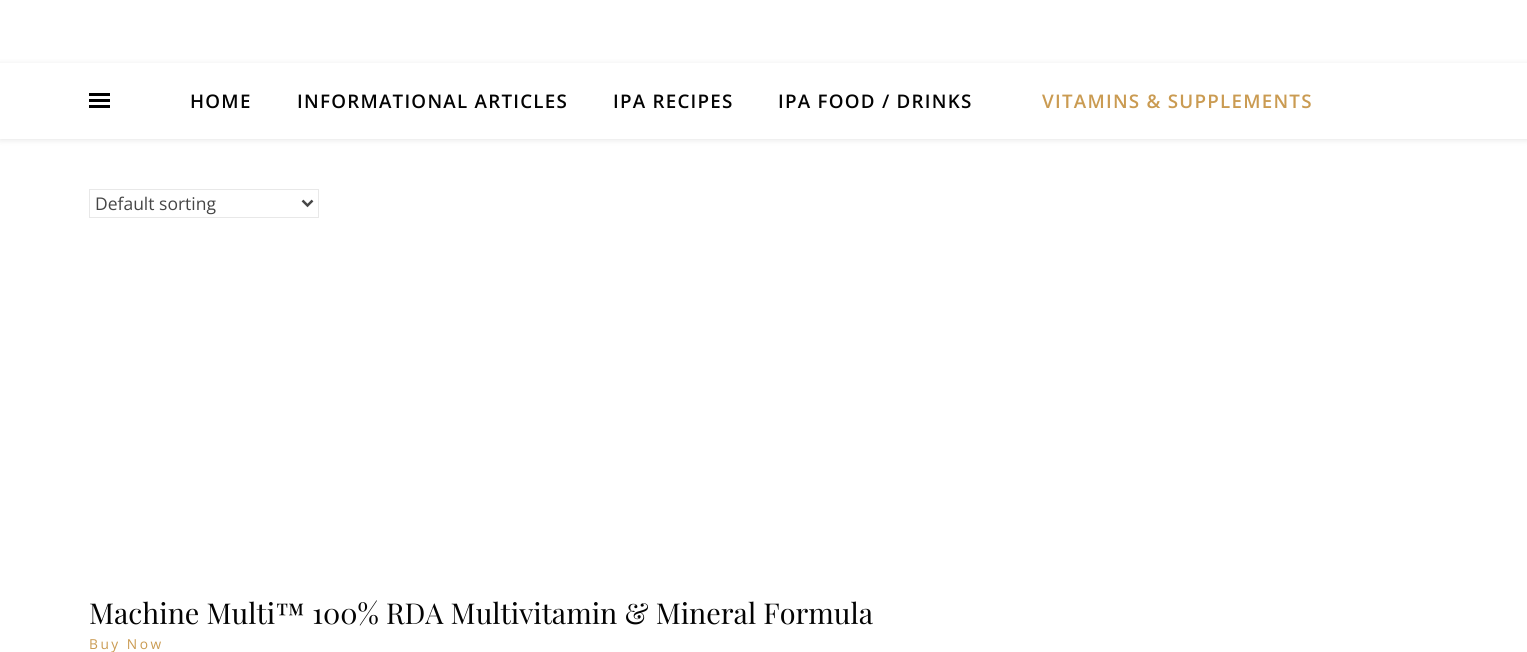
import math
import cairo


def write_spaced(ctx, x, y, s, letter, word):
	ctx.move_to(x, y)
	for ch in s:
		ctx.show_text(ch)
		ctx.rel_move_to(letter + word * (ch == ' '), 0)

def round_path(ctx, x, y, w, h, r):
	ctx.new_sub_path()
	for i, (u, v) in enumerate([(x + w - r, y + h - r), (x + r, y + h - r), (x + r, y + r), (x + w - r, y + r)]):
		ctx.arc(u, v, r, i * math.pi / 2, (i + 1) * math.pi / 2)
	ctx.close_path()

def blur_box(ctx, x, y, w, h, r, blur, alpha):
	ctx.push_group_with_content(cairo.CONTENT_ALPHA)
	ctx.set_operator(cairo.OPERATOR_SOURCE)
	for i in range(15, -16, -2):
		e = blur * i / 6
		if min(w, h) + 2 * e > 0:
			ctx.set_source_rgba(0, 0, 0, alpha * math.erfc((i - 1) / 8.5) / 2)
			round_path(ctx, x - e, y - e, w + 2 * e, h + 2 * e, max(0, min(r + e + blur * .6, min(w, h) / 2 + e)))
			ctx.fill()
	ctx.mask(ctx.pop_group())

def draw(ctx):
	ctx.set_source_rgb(1, 1, 1)
	ctx.paint()
	ctx.set_source_rgb(0, 0, 0)
	blur_box(ctx, 0, 64, 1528, 76, 0, 3, 0.1)
	ctx.set_source_rgb(1, 1, 1)
	ctx.rectangle(0, 63, 1527, 76)
	ctx.fill()
	ctx.set_source_rgb(0, 0, 0)
	ctx.rectangle(89, 93, 21, 3)
	ctx.rectangle(89, 99, 21, 3)
	ctx.rectangle(89, 105, 21, 3)
	ctx.fill()
	ctx.select_font_face('Open Sans SemiBold')
	ctx.set_font_size(18.75)
	ctx.set_source_rgb(0.012, 0.012, 0.012)
	for x, y, s in [
		(190, 108, 'HOME'),
		(297, 108, 'INFORMATIONAL ARTICLES'),
		(613, 108, 'IPA RECIPES'),
		(778, 108, 'IPA FOOD / DRINKS'),
	]:
		write_spaced(ctx, x, y, s, 1.25, 0)
	ctx.set_source_rgb(0.792, 0.608, 0.322)
	write_spaced(ctx, 1042, 108, 'VITAMINS & SUPPLEMENTS', 1.25, 0)
	ctx.rectangle(89.5, 189.5, 229, 28)
	ctx.set_source_rgb(0.91, 0.91, 0.91)
	ctx.set_line_width(1)
	ctx.stroke()
	ctx.new_path()
	ctx.move_to(302.5, 200.5)
	ctx.line_to(307.5, 205.5)
	ctx.line_to(312.5, 200.5)
	ctx.set_source_rgb(0.275, 0.275, 0.275)
	ctx.set_line_width(2.5)
	ctx.stroke()
	ctx.select_font_face('Open Sans')
	ctx.set_font_size(17.5)
	ctx.move_to(95, 210)
	ctx.show_text('Default sorting')
	ctx.select_font_face('Playfair Display')
	ctx.set_font_size(28.75)
	ctx.set_source_rgb(0.012, 0.012, 0.012)
	ctx.move_to(89, 624)
	ctx.show_text('Machine Multi™ 100% RDA Multivitamin & Mineral Formula')
	ctx.select_font_face('Open Sans')
	ctx.set_font_size(13.75)
	ctx.set_source_rgb(0.792, 0.608, 0.322)
	write_spaced(ctx, 89, 649, 'Buy Now', 2.5, 0)


surface = cairo.ImageSurface(cairo.FORMAT_RGB24, 1527, 652)
ctx = cairo.Context(surface)
options = cairo.FontOptions()
options.set_hint_metrics(cairo.HINT_METRICS_OFF)
options.set_hint_style(cairo.HINT_STYLE_NONE)
ctx.set_font_options(options)
ctx.set_miter_limit(4)
draw(ctx)
surface.write_to_png('image.png')
